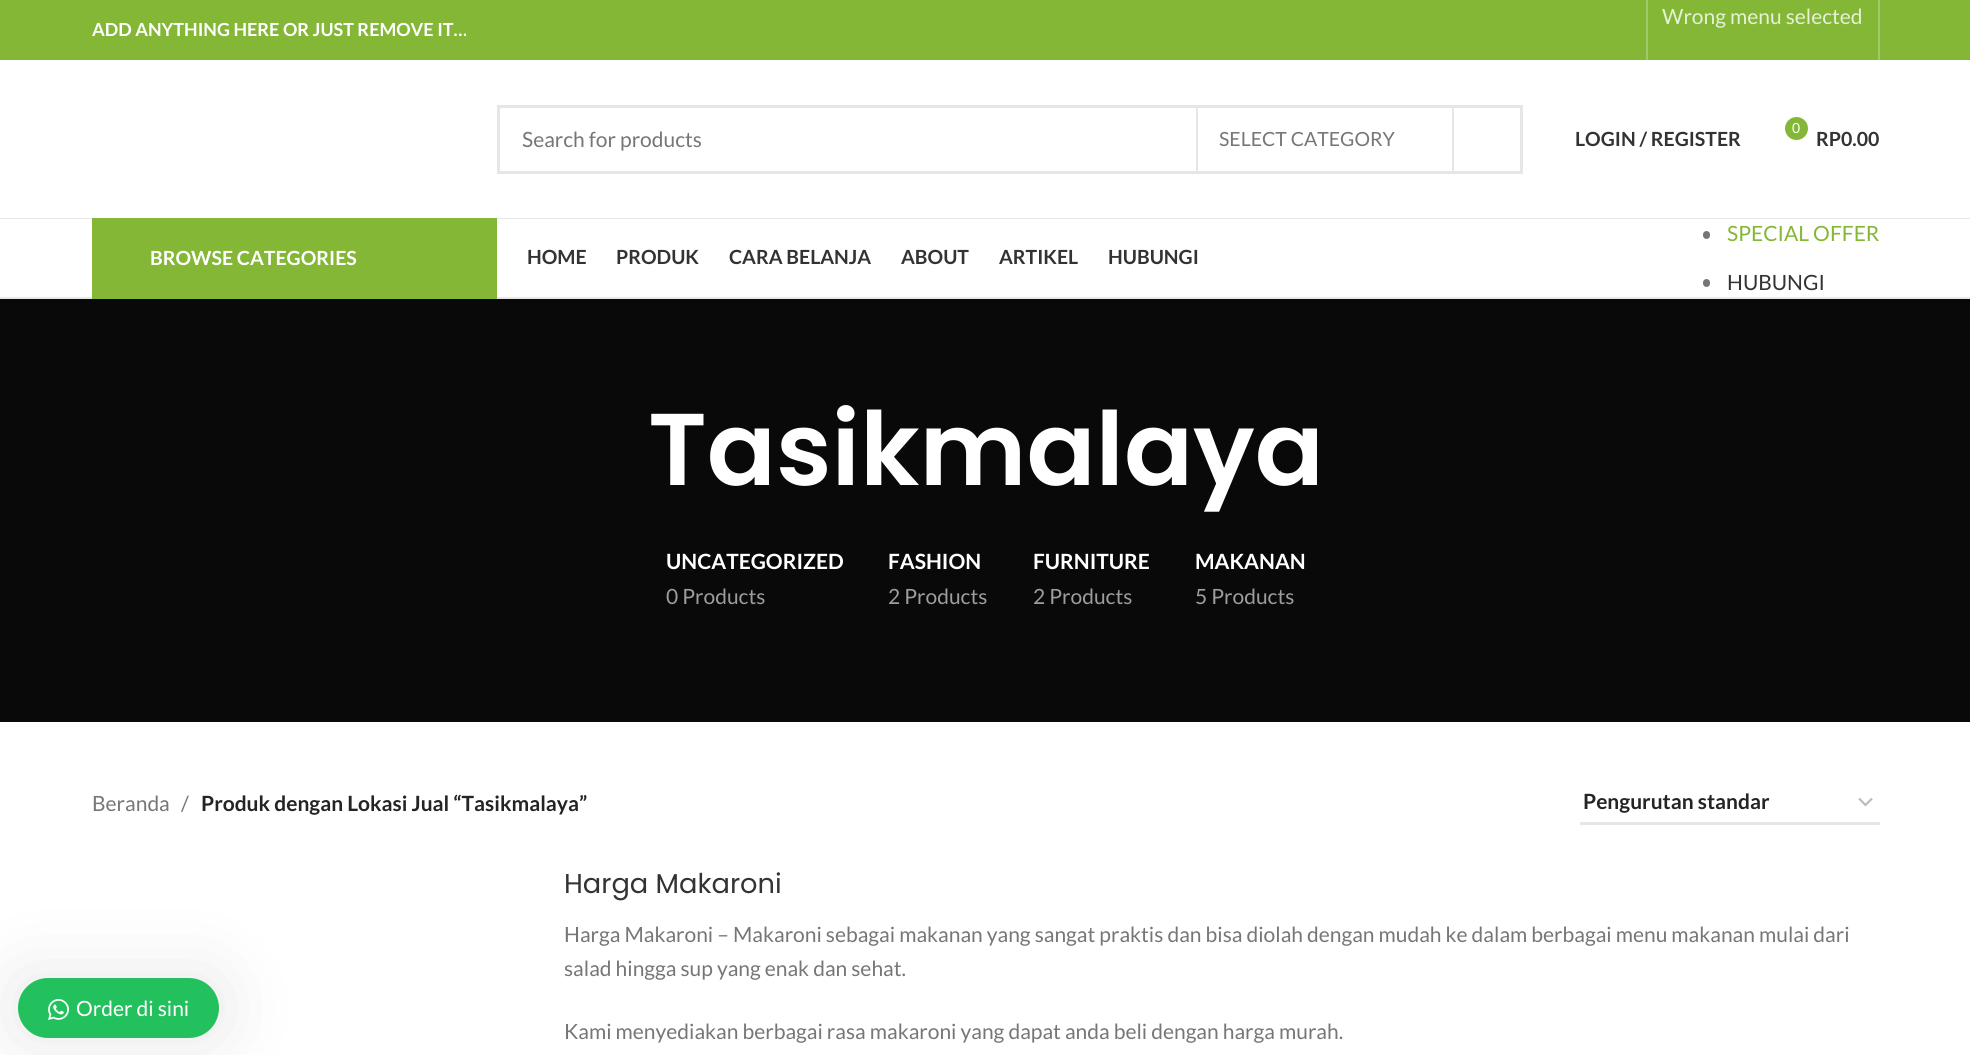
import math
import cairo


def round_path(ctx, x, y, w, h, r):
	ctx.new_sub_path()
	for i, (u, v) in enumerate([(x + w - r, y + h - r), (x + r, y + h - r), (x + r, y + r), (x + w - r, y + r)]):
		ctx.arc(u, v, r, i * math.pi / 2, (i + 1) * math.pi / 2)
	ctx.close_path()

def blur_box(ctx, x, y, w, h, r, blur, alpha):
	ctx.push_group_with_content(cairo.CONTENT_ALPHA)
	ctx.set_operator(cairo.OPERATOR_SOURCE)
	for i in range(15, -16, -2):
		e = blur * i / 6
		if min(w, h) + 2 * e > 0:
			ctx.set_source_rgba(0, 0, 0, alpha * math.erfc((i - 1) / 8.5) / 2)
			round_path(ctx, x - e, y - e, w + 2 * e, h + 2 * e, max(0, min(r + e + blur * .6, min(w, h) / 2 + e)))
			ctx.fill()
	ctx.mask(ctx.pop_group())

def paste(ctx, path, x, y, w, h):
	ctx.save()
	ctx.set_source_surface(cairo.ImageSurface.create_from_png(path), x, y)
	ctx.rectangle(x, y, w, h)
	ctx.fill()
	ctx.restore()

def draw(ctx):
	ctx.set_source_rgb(1, 1, 1)
	ctx.paint()
	ctx.set_source_rgb(0.514, 0.718, 0.208)
	ctx.rectangle(0, 0, 1970, 60)
	ctx.fill()
	ctx.set_source_rgb(0.635, 0.788, 0.408)
	ctx.rectangle(1646, 0, 2, 60)
	ctx.fill()
	ctx.select_font_face('Lato')
	ctx.set_font_size(21)
	ctx.set_source_rgb(0.902, 0.945, 0.843)
	ctx.move_to(1662, 24)
	ctx.show_text('Wrong menu selected')
	ctx.set_source_rgb(0.635, 0.788, 0.408)
	ctx.rectangle(1878, 0, 2, 60)
	ctx.fill()
	ctx.select_font_face('Lato', cairo.FONT_SLANT_NORMAL, cairo.FONT_WEIGHT_BOLD)
	ctx.set_font_size(18)
	ctx.set_source_rgb(1, 1, 1)
	ctx.move_to(92, 36)
	ctx.show_text('ADD ANYTHING HERE OR JUST REMOVE IT…')
	ctx.set_source_rgb(0.91, 0.91, 0.91)
	ctx.rectangle(0, 218, 1970, 1)
	ctx.fill()
	ctx.rectangle(498.5, 106.5, 1023, 66)
	ctx.set_source_rgb(0.902, 0.902, 0.902)
	ctx.set_line_width(3)
	ctx.stroke()
	ctx.select_font_face('Lato')
	ctx.set_font_size(21)
	ctx.set_source_rgb(0.463, 0.463, 0.463)
	ctx.move_to(522, 147)
	ctx.show_text('Search for products')
	ctx.set_source_rgb(0.902, 0.902, 0.902)
	ctx.rectangle(1452, 108, 2, 63)
	ctx.fill()
	ctx.rectangle(1196, 108, 2, 63)
	ctx.fill()
	ctx.set_font_size(19.5)
	ctx.set_source_rgb(0.463, 0.463, 0.463)
	ctx.move_to(1219, 146)
	ctx.show_text('SELECT CATEGORY')
	ctx.select_font_face('Lato', cairo.FONT_SLANT_NORMAL, cairo.FONT_WEIGHT_BOLD)
	ctx.set_source_rgb(0.2, 0.2, 0.2)
	ctx.move_to(1575, 146)
	ctx.show_text('LOGIN / REGISTER')
	ctx.set_source_rgb(0.514, 0.718, 0.208)
	ctx.new_path()
	ctx.arc(1796.5, 128.5, 11.5, 0, 2 * math.pi)
	ctx.fill()
	ctx.select_font_face('Lato')
	ctx.set_font_size(14)
	ctx.set_source_rgb(1, 1, 1)
	ctx.move_to(1792, 133)
	ctx.show_text('0')
	ctx.select_font_face('Lato', cairo.FONT_SLANT_NORMAL, cairo.FONT_WEIGHT_BOLD)
	ctx.set_font_size(19.5)
	ctx.set_source_rgb(0.2, 0.2, 0.2)
	ctx.move_to(1816, 146)
	ctx.show_text('RP0.00')
	ctx.set_source_rgb(0.91, 0.91, 0.91)
	ctx.rectangle(0, 297, 1970, 2)
	ctx.fill()
	ctx.set_source_rgb(0.514, 0.718, 0.208)
	ctx.rectangle(92, 218, 405, 81)
	ctx.fill()
	ctx.set_source_rgb(1, 1, 1)
	ctx.move_to(150, 265)
	ctx.show_text('BROWSE CATEGORIES')
	ctx.set_source_rgb(0.2, 0.2, 0.2)
	for x, y, s in [
		(527, 264, 'HOME'),
		(616, 264, 'PRODUK'),
		(729, 264, 'CARA BELANJA'),
		(901, 264, 'ABOUT'),
		(999, 264, 'ARTIKEL'),
		(1108, 264, 'HUBUNGI'),
	]:
		ctx.move_to(x, y)
		ctx.show_text(s)
	ctx.set_source_rgb(0.463, 0.463, 0.463)
	round_path(ctx, 1703, 231, 7, 8, 3.5)
	ctx.fill()
	ctx.select_font_face('Lato')
	ctx.set_font_size(21)
	ctx.set_source_rgb(0.514, 0.718, 0.208)
	ctx.move_to(1727, 241)
	ctx.show_text('SPECIAL OFFER')
	ctx.set_source_rgb(0.463, 0.463, 0.463)
	round_path(ctx, 1703, 279, 7, 8, 3.5)
	ctx.fill()
	ctx.set_source_rgb(0.2, 0.2, 0.2)
	ctx.move_to(1727, 290)
	ctx.show_text('HUBUNGI')
	ctx.set_source_rgb(0.039, 0.039, 0.039)
	ctx.rectangle(0, 299, 1970, 423)
	ctx.fill()
	ctx.select_font_face('Poppins SemiBold')
	ctx.set_font_size(102)
	ctx.set_source_rgb(1, 1, 1)
	ctx.move_to(648, 485)
	ctx.show_text('Tasikmalaya')
	ctx.select_font_face('Lato', cairo.FONT_SLANT_NORMAL, cairo.FONT_WEIGHT_BOLD)
	ctx.set_font_size(21)
	ctx.move_to(666, 569)
	ctx.show_text('UNCATEGORIZED')
	ctx.select_font_face('Lato')
	ctx.set_source_rgb(0.616, 0.616, 0.616)
	ctx.move_to(666, 604)
	ctx.show_text('0 Products')
	ctx.select_font_face('Lato', cairo.FONT_SLANT_NORMAL, cairo.FONT_WEIGHT_BOLD)
	ctx.set_source_rgb(1, 1, 1)
	ctx.move_to(888, 569)
	ctx.show_text('FASHION')
	ctx.select_font_face('Lato')
	ctx.set_source_rgb(0.616, 0.616, 0.616)
	ctx.move_to(888, 604)
	ctx.show_text('2 Products')
	ctx.select_font_face('Lato', cairo.FONT_SLANT_NORMAL, cairo.FONT_WEIGHT_BOLD)
	ctx.set_source_rgb(1, 1, 1)
	ctx.move_to(1033, 569)
	ctx.show_text('FURNITURE')
	ctx.select_font_face('Lato')
	ctx.set_source_rgb(0.616, 0.616, 0.616)
	ctx.move_to(1033, 604)
	ctx.show_text('2 Products')
	ctx.select_font_face('Lato', cairo.FONT_SLANT_NORMAL, cairo.FONT_WEIGHT_BOLD)
	ctx.set_source_rgb(1, 1, 1)
	ctx.move_to(1195, 569)
	ctx.show_text('MAKANAN')
	ctx.select_font_face('Lato')
	ctx.set_source_rgb(0.616, 0.616, 0.616)
	ctx.move_to(1195, 604)
	ctx.show_text('5 Products')
	ctx.set_source_rgb(0.463, 0.463, 0.463)
	ctx.move_to(92, 811)
	ctx.show_text('Beranda')
	ctx.move_to(181, 811)
	ctx.show_text('/')
	ctx.select_font_face('Lato', cairo.FONT_SLANT_NORMAL, cairo.FONT_WEIGHT_BOLD)
	ctx.set_source_rgb(0.141, 0.141, 0.141)
	ctx.move_to(201, 811)
	ctx.show_text('Produk dengan Lokasi Jual “Tasikmalaya”')
	ctx.new_path()
	ctx.move_to(1859, 798.5)
	ctx.line_to(1865.5, 805)
	ctx.line_to(1872, 798.5)
	ctx.set_source_rgb(0.733, 0.733, 0.733)
	ctx.set_line_width(2.2)
	ctx.stroke()
	ctx.set_source_rgb(0.902, 0.902, 0.902)
	ctx.rectangle(1580, 822, 300, 3)
	ctx.fill()
	ctx.set_source_rgb(0.141, 0.141, 0.141)
	ctx.move_to(1583, 809)
	ctx.show_text('Pengurutan standar')
	ctx.select_font_face('Poppins')
	ctx.set_font_size(27.25)
	ctx.set_source_rgb(0.2, 0.2, 0.2)
	ctx.move_to(564, 893)
	ctx.show_text('Harga Makaroni')
	ctx.select_font_face('Lato')
	ctx.set_font_size(21)
	ctx.set_source_rgb(0.463, 0.463, 0.463)
	for x, y, s in [
		(564, 942, 'Harga Makaroni – Makaroni sebagai makanan yang sangat praktis dan bisa diolah dengan mudah ke dalam berbagai menu makanan mulai dari'),
		(564, 976, 'salad hingga sup yang enak dan sehat.'),
		(564, 1039, 'Kami menyediakan berbagai rasa makaroni yang dapat anda beli dengan harga murah.'),
	]:
		ctx.move_to(x, y)
		ctx.show_text(s)
	ctx.set_source_rgb(0, 0, 0)
	blur_box(ctx, 18, 978, 201, 60, 30, 37.5, 0.1)
	ctx.set_source_rgb(0.133, 0.757, 0.369)
	round_path(ctx, 18, 978, 201, 60, 30)
	ctx.fill()
	paste(ctx, 'media/1.png', 48, 999, 21, 21)
	ctx.set_source_rgb(1, 1, 1)
	ctx.move_to(76, 1016)
	ctx.show_text('Order di sini')


surface = cairo.ImageSurface(cairo.FORMAT_RGB24, 1970, 1055)
ctx = cairo.Context(surface)
options = cairo.FontOptions()
options.set_hint_metrics(cairo.HINT_METRICS_OFF)
options.set_hint_style(cairo.HINT_STYLE_NONE)
ctx.set_font_options(options)
ctx.set_miter_limit(4)
draw(ctx)
surface.write_to_png('image.png')
